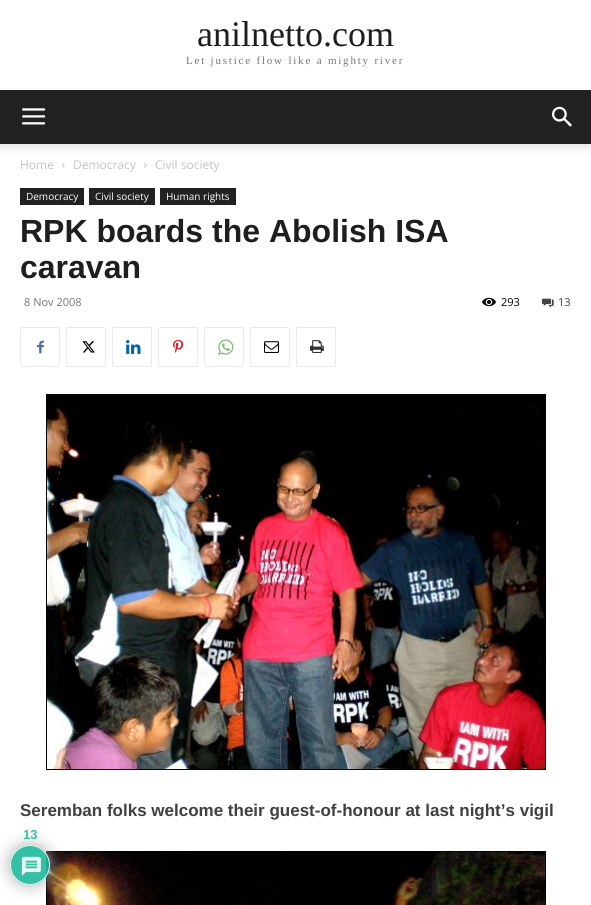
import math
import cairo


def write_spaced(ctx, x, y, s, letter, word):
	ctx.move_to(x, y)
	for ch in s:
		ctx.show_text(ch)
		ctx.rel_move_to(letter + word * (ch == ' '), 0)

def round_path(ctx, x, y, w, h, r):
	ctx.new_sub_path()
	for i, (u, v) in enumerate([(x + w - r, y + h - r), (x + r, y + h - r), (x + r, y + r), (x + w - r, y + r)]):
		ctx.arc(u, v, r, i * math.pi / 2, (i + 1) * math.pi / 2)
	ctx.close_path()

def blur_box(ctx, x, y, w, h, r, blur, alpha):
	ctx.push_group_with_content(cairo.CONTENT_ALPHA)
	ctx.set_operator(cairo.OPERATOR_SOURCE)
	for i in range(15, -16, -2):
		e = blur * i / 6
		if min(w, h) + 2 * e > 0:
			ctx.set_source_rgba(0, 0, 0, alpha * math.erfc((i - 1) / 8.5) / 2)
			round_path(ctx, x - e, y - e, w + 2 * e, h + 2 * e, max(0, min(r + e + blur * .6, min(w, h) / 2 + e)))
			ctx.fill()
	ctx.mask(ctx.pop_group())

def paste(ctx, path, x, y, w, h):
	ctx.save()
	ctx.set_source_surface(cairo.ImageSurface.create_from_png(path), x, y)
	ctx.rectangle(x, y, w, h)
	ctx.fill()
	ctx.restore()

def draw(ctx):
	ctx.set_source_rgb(1, 1, 1)
	ctx.paint()
	ctx.select_font_face('Liberation Serif')
	ctx.set_font_size(36)
	ctx.set_source_rgb(0.118, 0.118, 0.118)
	ctx.move_to(197, 46)
	ctx.show_text('anilnetto.com')
	ctx.set_font_size(11)
	ctx.set_source_rgb(0.463, 0.463, 0.463)
	write_spaced(ctx, 186, 64, 'Let justice flow like a mighty river', 1.8, 0)
	ctx.set_source_rgb(0.133, 0.133, 0.133)
	ctx.rectangle(0, 90, 591, 54)
	ctx.fill()
	paste(ctx, 'media/1.png', 22, 108, 24, 17)
	paste(ctx, 'media/2.png', 552, 106, 20, 21)
	paste(ctx, 'media/3.png', 0, 144, 591, 9)
	ctx.select_font_face('Open Sans')
	ctx.set_font_size(12)
	ctx.set_source_rgb(0.765, 0.765, 0.765)
	ctx.move_to(20, 169)
	ctx.show_text('Home')
	paste(ctx, 'media/4.png', 62, 163, 3, 5)
	ctx.move_to(73, 169)
	ctx.show_text('Democracy')
	paste(ctx, 'media/4.png', 144, 163, 3, 5)
	ctx.move_to(155, 169)
	ctx.show_text('Civil society')
	ctx.set_source_rgb(0.133, 0.133, 0.133)
	ctx.rectangle(20, 188, 64, 17)
	ctx.fill()
	ctx.set_font_size(10)
	ctx.set_source_rgb(1, 1, 1)
	ctx.move_to(26, 200)
	ctx.show_text('Democracy')
	ctx.set_source_rgb(0.133, 0.133, 0.133)
	ctx.rectangle(89, 188, 66, 17)
	ctx.fill()
	ctx.set_source_rgb(1, 1, 1)
	ctx.move_to(95, 200)
	ctx.show_text('Civil society')
	ctx.set_source_rgb(0.133, 0.133, 0.133)
	ctx.rectangle(160, 188, 76, 17)
	ctx.fill()
	ctx.set_source_rgb(1, 1, 1)
	ctx.move_to(166, 200)
	ctx.show_text('Human rights')
	ctx.select_font_face('Liberation Sans', cairo.FONT_SLANT_NORMAL, cairo.FONT_WEIGHT_BOLD)
	ctx.set_font_size(32)
	ctx.set_source_rgb(0.118, 0.118, 0.118)
	ctx.move_to(20, 242)
	ctx.show_text('RPK boards the Abolish ISA')
	ctx.move_to(20, 278)
	ctx.show_text('caravan')
	ctx.select_font_face('Open Sans')
	ctx.set_font_size(11)
	ctx.set_source_rgb(0.463, 0.463, 0.463)
	ctx.move_to(24, 306)
	ctx.show_text('8 Nov 2008')
	paste(ctx, 'media/5.png', 482, 297, 14, 10)
	ctx.set_source_rgb(0, 0, 0)
	ctx.move_to(501, 306)
	ctx.show_text('293')
	paste(ctx, 'media/6.png', 542, 298, 12, 10)
	ctx.set_source_rgb(0.251, 0.251, 0.251)
	ctx.move_to(558, 306)
	ctx.show_text('13')
	round_path(ctx, 20.5, 327.5, 39, 39, 1.5)
	ctx.set_source_rgb(0.914, 0.914, 0.914)
	ctx.set_line_width(1)
	ctx.stroke()
	paste(ctx, 'media/7.png', 37, 340, 7, 14)
	round_path(ctx, 66.5, 327.5, 39, 39, 1.5)
	ctx.stroke()
	paste(ctx, 'media/8.png', 82, 341, 13, 12)
	round_path(ctx, 112.5, 327.5, 39, 39, 1.5)
	ctx.stroke()
	paste(ctx, 'media/9.png', 126, 340, 15, 14)
	round_path(ctx, 158.5, 327.5, 39, 39, 1.5)
	ctx.stroke()
	paste(ctx, 'media/10.png', 173, 339, 11, 14)
	round_path(ctx, 204.5, 327.5, 39, 39, 1.5)
	ctx.stroke()
	paste(ctx, 'media/11.png', 218, 339, 16, 16)
	round_path(ctx, 250.5, 327.5, 39, 39, 1.5)
	ctx.stroke()
	paste(ctx, 'media/12.png', 264, 341, 15, 12)
	round_path(ctx, 296.5, 327.5, 39, 39, 1.5)
	ctx.stroke()
	paste(ctx, 'media/13.png', 310, 340, 14, 13)
	ctx.rectangle(46.5, 394.5, 499, 375)
	ctx.set_source_rgb(0, 0, 0)
	ctx.stroke()
	paste(ctx, 'media/14.png', 47, 395, 498, 374)
	ctx.select_font_face('Liberation Sans', cairo.FONT_SLANT_NORMAL, cairo.FONT_WEIGHT_BOLD)
	ctx.set_font_size(17)
	ctx.set_source_rgb(0.251, 0.251, 0.251)
	ctx.move_to(20, 816)
	ctx.show_text('Seremban folks welcome their guest-of-honour at last night’s vigil')
	ctx.rectangle(46.5, 851.5, 499, 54)
	ctx.set_source_rgb(0, 0, 0)
	ctx.stroke()
	paste(ctx, 'media/15.png', 47, 852, 498, 53)
	ctx.save()
	ctx.set_fill_rule(cairo.FILL_RULE_EVEN_ODD)
	ctx.new_path()
	ctx.move_to(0, 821)
	ctx.line_to(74, 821)
	ctx.line_to(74, 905)
	ctx.line_to(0, 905)
	ctx.close_path()
	ctx.move_to(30, 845)
	ctx.curve_to(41, 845, 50, 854, 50, 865)
	ctx.curve_to(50, 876, 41, 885, 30, 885)
	ctx.curve_to(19, 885, 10, 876, 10, 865)
	ctx.curve_to(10, 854, 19, 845, 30, 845)
	ctx.close_path()
	ctx.clip()
	ctx.set_source_rgb(0.667, 0.667, 0.667)
	blur_box(ctx, 10, 845, 40, 40, 20, 7.5, 0.9)
	ctx.restore()
	ctx.set_source_rgba(0.114, 0.725, 0.604, 0.9)
	ctx.arc(30, 865, 20, 0, 2 * math.pi)
	ctx.fill()
	ctx.arc(30, 865, 19.5, 0, 2 * math.pi)
	ctx.set_source_rgba(1, 1, 1, 0.9)
	ctx.stroke()
	paste(ctx, 'media/16.png', 21, 856, 20, 20)
	ctx.set_font_size(13)
	ctx.set_source_rgb(0.204, 0.753, 0.643)
	ctx.move_to(23, 839)
	ctx.show_text('13')


surface = cairo.ImageSurface(cairo.FORMAT_RGB24, 591, 905)
ctx = cairo.Context(surface)
options = cairo.FontOptions()
options.set_hint_metrics(cairo.HINT_METRICS_OFF)
options.set_hint_style(cairo.HINT_STYLE_NONE)
ctx.set_font_options(options)
ctx.set_miter_limit(4)
draw(ctx)
surface.write_to_png('image.png')
